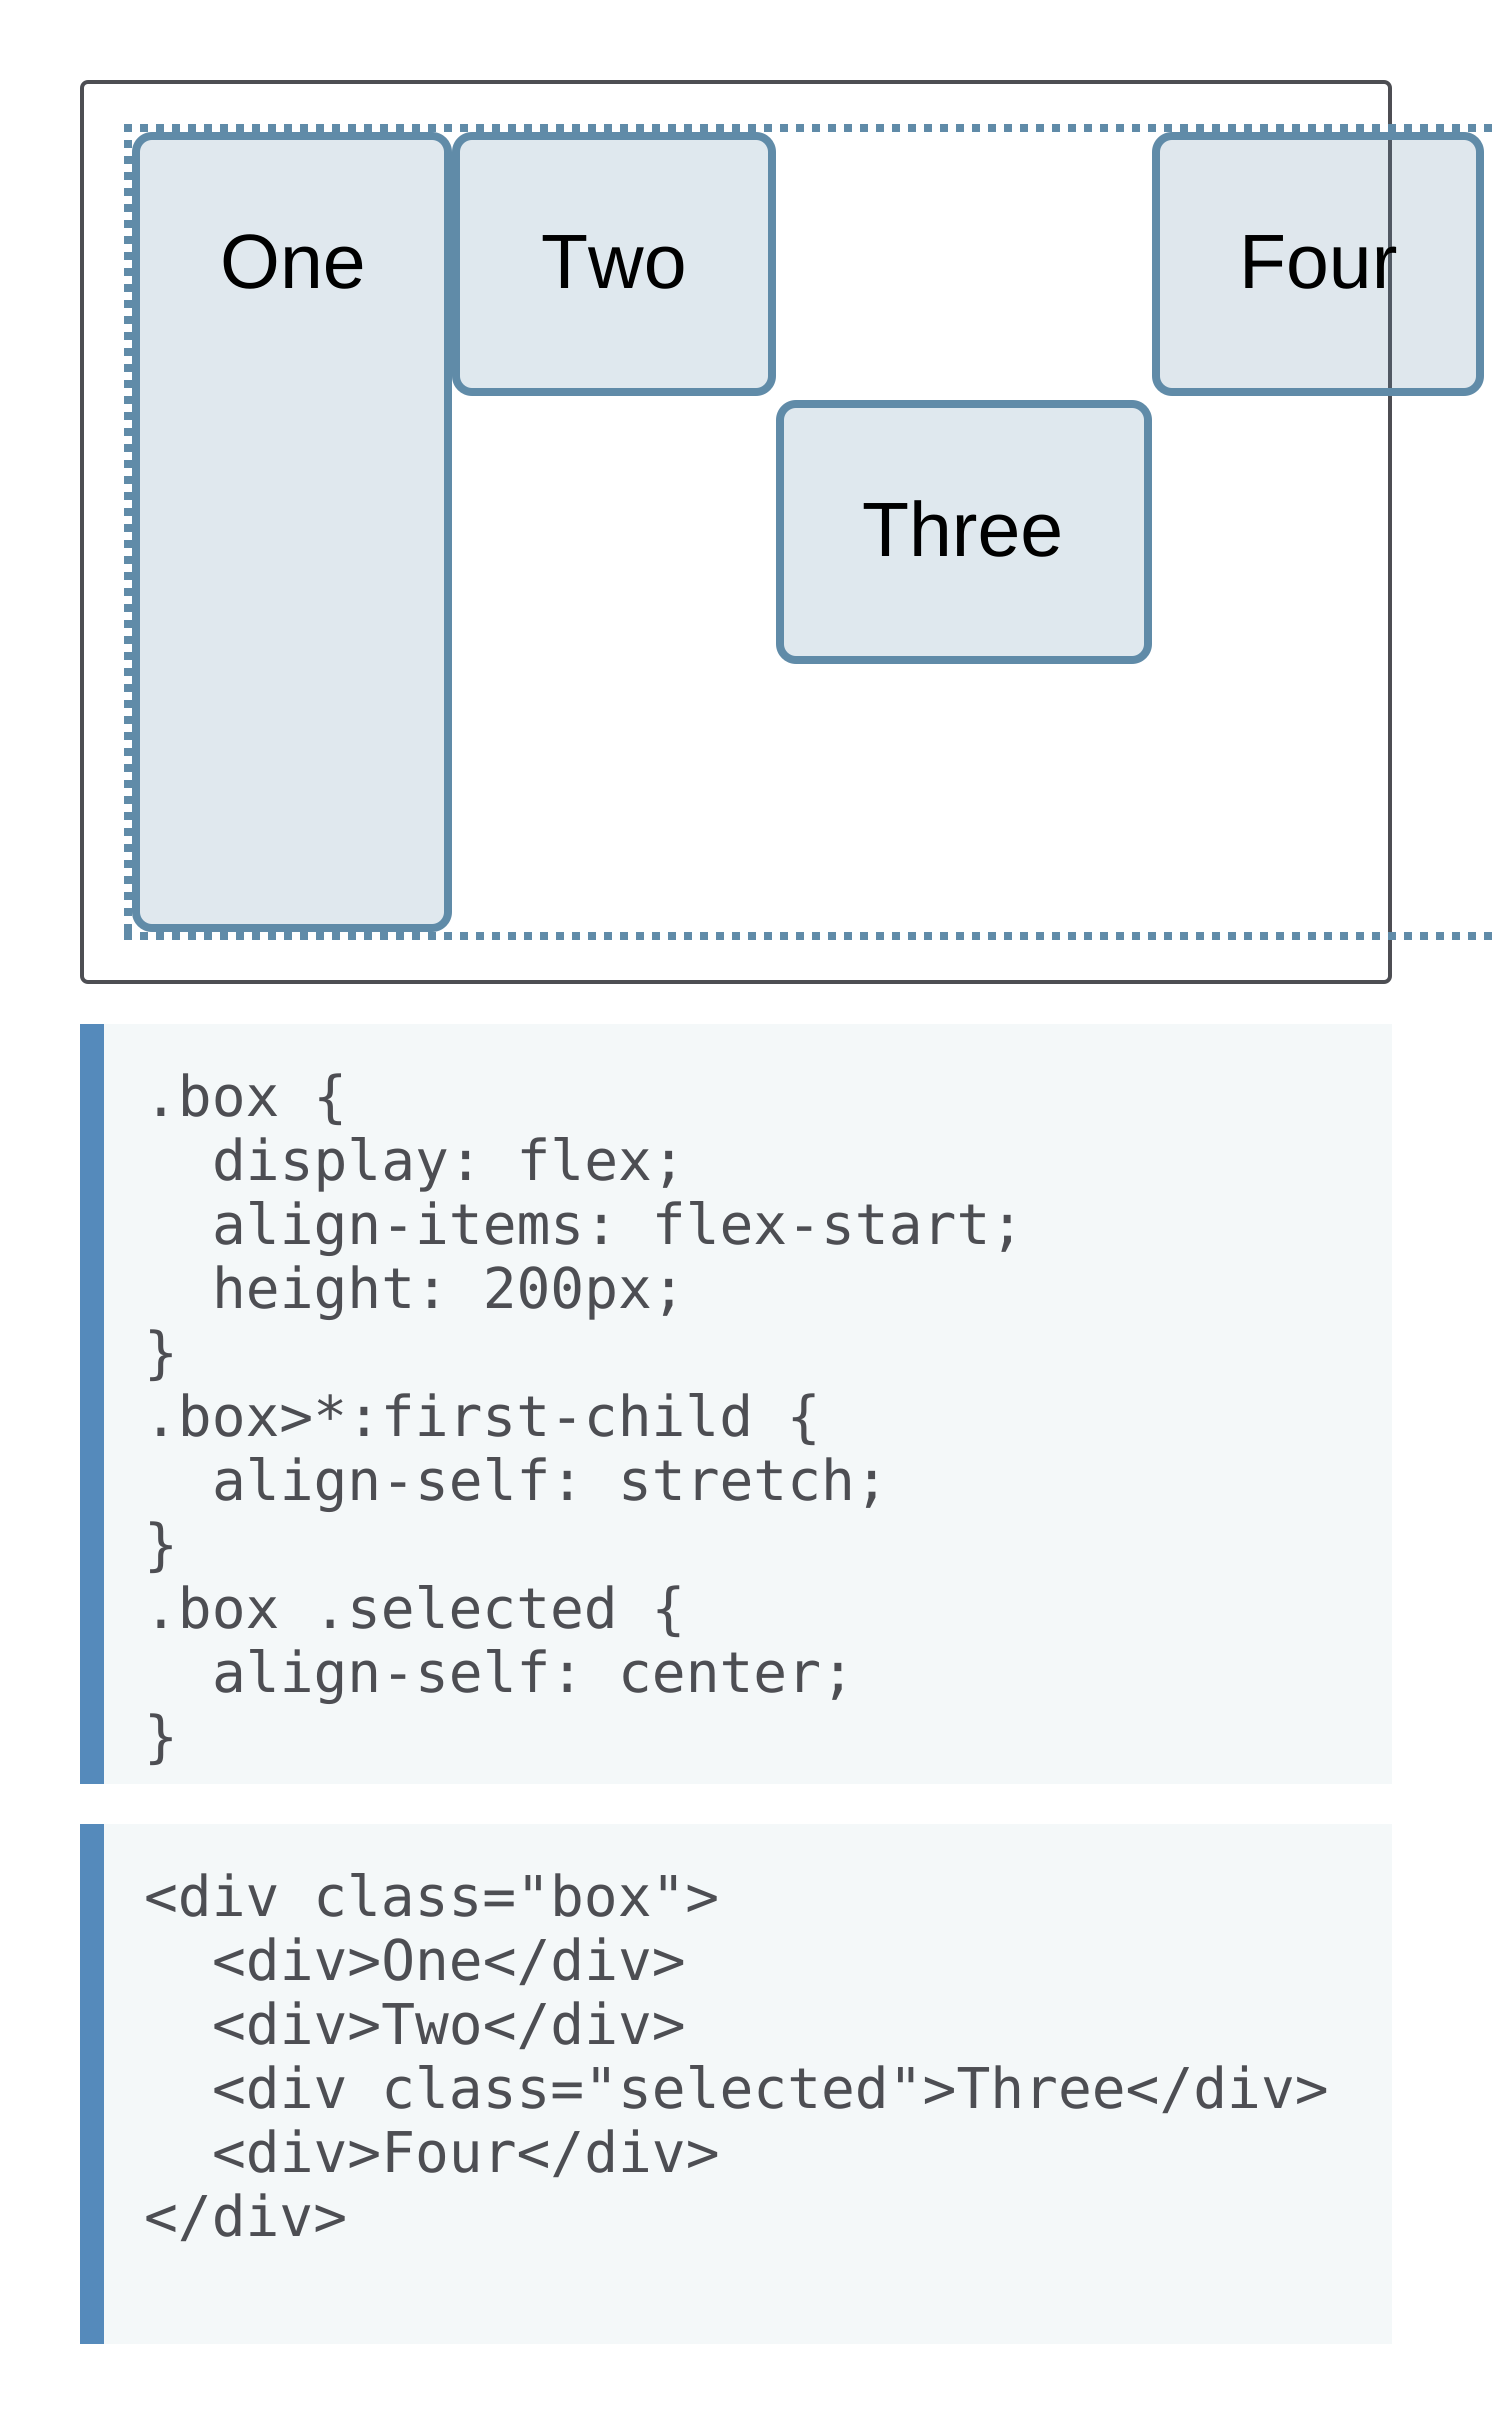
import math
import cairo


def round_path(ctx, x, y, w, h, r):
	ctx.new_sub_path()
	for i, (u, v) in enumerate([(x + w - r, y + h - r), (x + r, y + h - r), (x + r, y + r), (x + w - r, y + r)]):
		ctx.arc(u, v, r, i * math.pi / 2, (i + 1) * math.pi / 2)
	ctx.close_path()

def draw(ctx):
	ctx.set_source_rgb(1, 1, 1)
	ctx.paint()
	round_path(ctx, 82, 82, 1308, 900, 6)
	ctx.set_source_rgb(0.302, 0.306, 0.325)
	ctx.set_line_width(4)
	ctx.stroke()
	ctx.new_path()
	ctx.move_to(124, 128)
	ctx.line_to(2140, 128)
	ctx.set_source_rgb(0.376, 0.545, 0.659)
	ctx.set_line_width(8)
	ctx.set_dash([8, 8])
	ctx.stroke()
	ctx.new_path()
	ctx.move_to(124, 936)
	ctx.line_to(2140, 936)
	ctx.stroke()
	ctx.new_path()
	ctx.move_to(128, 124)
	ctx.line_to(128, 940)
	ctx.stroke()
	ctx.set_source_rgb(0.878, 0.91, 0.933)
	round_path(ctx, 136, 136, 312, 792, 16)
	ctx.fill_preserve()
	ctx.set_source_rgb(0.376, 0.545, 0.659)
	ctx.set_dash([])
	ctx.stroke()
	ctx.select_font_face('Liberation Sans')
	ctx.set_font_size(77)
	ctx.set_source_rgb(0, 0, 0)
	ctx.move_to(220, 288)
	ctx.show_text('One')
	ctx.set_source_rgb(0.875, 0.91, 0.933)
	round_path(ctx, 456, 136, 316, 256, 16)
	ctx.fill_preserve()
	ctx.set_source_rgb(0.376, 0.545, 0.659)
	ctx.stroke()
	ctx.set_source_rgb(0, 0, 0)
	ctx.move_to(541, 288)
	ctx.show_text('Two')
	ctx.set_source_rgba(0.376, 0.545, 0.659, 0.2)
	round_path(ctx, 1156, 136, 324, 256, 16)
	ctx.fill_preserve()
	ctx.set_source_rgb(0.376, 0.545, 0.659)
	ctx.stroke()
	ctx.set_source_rgb(0, 0, 0)
	ctx.move_to(1239, 288)
	ctx.show_text('Four')
	ctx.set_source_rgb(0.875, 0.91, 0.933)
	round_path(ctx, 780, 404, 368, 256, 16)
	ctx.fill_preserve()
	ctx.set_source_rgb(0.376, 0.545, 0.659)
	ctx.stroke()
	ctx.set_source_rgb(0, 0, 0)
	ctx.move_to(862, 556)
	ctx.show_text('Three')
	ctx.set_source_rgb(0.957, 0.969, 0.973)
	ctx.rectangle(104, 1024, 1288, 760)
	ctx.fill()
	ctx.set_source_rgb(0.333, 0.541, 0.733)
	ctx.rectangle(80, 1024, 24, 760)
	ctx.fill()
	ctx.select_font_face('DejaVu Sans Mono')
	ctx.set_font_size(56.2)
	ctx.set_source_rgb(0.302, 0.306, 0.325)
	for x, y, s in [
		(144, 1116, '.box {'),
		(212, 1180, 'display: flex;'),
		(212, 1244, 'align-items: flex-start;'),
		(212, 1308, 'height: 200px;'),
		(144, 1372, '}'),
		(144, 1436, '.box>*:first-child {'),
		(212, 1500, 'align-self: stretch;'),
		(144, 1564, '}'),
		(144, 1628, '.box .selected {'),
		(212, 1692, 'align-self: center;'),
		(144, 1756, '}'),
	]:
		ctx.move_to(x, y)
		ctx.show_text(s)
	ctx.set_source_rgb(0.957, 0.969, 0.973)
	ctx.rectangle(104, 1824, 1288, 520)
	ctx.fill()
	ctx.set_source_rgb(0.333, 0.541, 0.733)
	ctx.rectangle(80, 1824, 24, 520)
	ctx.fill()
	ctx.set_source_rgb(0.302, 0.306, 0.325)
	for x, y, s in [
		(144, 1916, '<div class="box">'),
		(212, 1980, '<div>One</div>'),
		(212, 2044, '<div>Two</div>'),
		(212, 2108, '<div class="selected">Three</div>'),
		(212, 2172, '<div>Four</div>'),
		(144, 2236, '</div>'),
	]:
		ctx.move_to(x, y)
		ctx.show_text(s)


surface = cairo.ImageSurface(cairo.FORMAT_RGB24, 1500, 2412)
ctx = cairo.Context(surface)
options = cairo.FontOptions()
options.set_hint_metrics(cairo.HINT_METRICS_OFF)
options.set_hint_style(cairo.HINT_STYLE_NONE)
ctx.set_font_options(options)
ctx.set_miter_limit(4)
draw(ctx)
surface.write_to_png('image.png')
